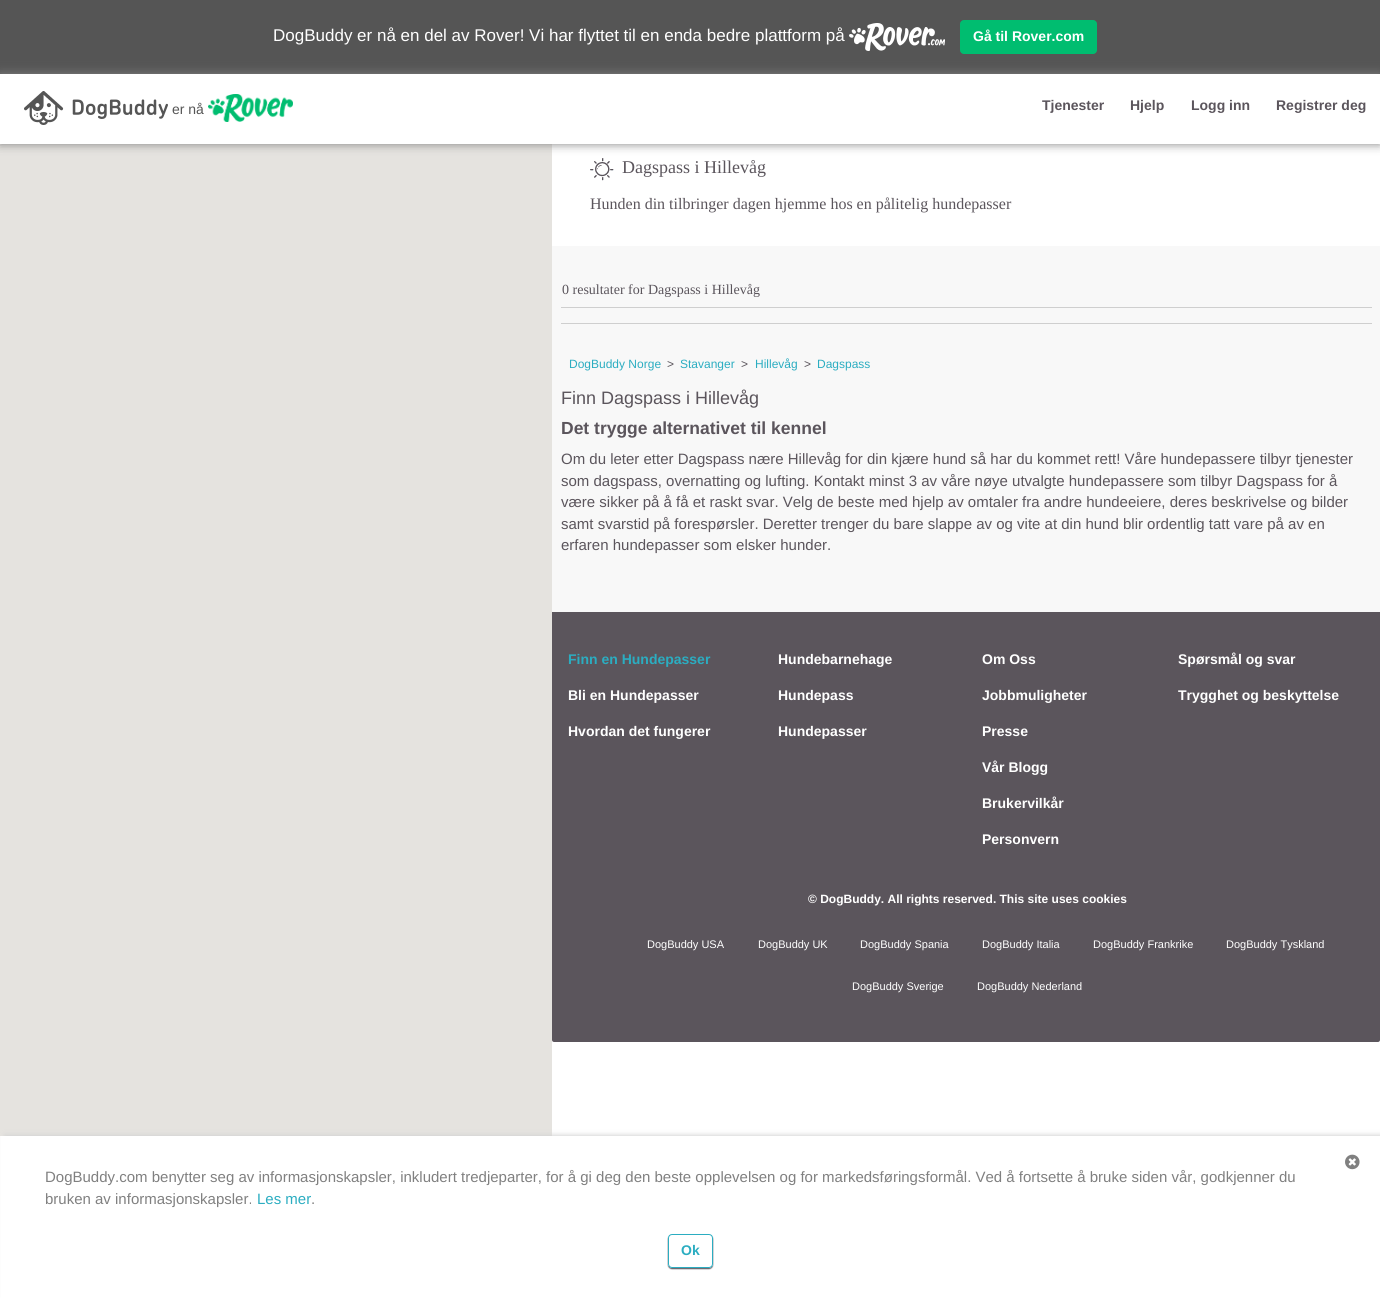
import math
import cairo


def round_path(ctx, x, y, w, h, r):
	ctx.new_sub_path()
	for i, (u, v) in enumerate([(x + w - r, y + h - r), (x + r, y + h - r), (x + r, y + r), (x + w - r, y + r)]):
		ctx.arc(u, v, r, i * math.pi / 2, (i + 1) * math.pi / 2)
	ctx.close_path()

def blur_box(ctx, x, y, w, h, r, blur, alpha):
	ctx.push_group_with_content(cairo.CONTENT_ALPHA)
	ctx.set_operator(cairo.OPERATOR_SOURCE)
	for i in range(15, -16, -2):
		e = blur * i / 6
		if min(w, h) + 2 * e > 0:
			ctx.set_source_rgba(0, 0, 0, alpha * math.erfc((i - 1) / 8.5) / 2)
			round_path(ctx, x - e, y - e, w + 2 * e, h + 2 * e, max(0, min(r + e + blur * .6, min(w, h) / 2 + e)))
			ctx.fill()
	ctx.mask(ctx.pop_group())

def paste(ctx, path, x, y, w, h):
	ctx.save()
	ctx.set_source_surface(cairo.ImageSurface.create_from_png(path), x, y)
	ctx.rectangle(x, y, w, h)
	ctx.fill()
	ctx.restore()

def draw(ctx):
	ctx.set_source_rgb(1, 1, 1)
	ctx.paint()
	ctx.set_source_rgb(0.333, 0.333, 0.333)
	ctx.rectangle(0, 0, 1380, 74)
	ctx.fill()
	ctx.select_font_face('Liberation Sans')
	ctx.set_font_size(17)
	ctx.set_source_rgb(1, 1, 1)
	ctx.move_to(273, 41)
	ctx.show_text('DogBuddy er nå en del av Rover! Vi har flyttet til en enda bedre plattform på')
	paste(ctx, 'media/1.png', 849, 23, 96, 28)
	ctx.set_source_rgb(0, 0.741, 0.439)
	round_path(ctx, 960.5, 20.5, 136, 33, 3.5)
	ctx.fill_preserve()
	ctx.set_line_width(1)
	ctx.stroke()
	ctx.select_font_face('Liberation Sans', cairo.FONT_SLANT_NORMAL, cairo.FONT_WEIGHT_BOLD)
	ctx.set_font_size(14)
	ctx.set_source_rgb(1, 1, 1)
	ctx.move_to(973, 41)
	ctx.show_text('Gå til Rover.com')
	ctx.set_source_rgb(0.898, 0.89, 0.875)
	ctx.rectangle(0, 144, 552, 992)
	ctx.fill()
	paste(ctx, 'media/4.png', 590, 158, 24, 23)
	ctx.set_source_rgb(0.502, 0.502, 0.502)
	blur_box(ctx, 0, 74, 1380, 70, 0, 5, 1)
	ctx.set_source_rgb(1, 1, 1)
	ctx.rectangle(0, 74, 1380, 70)
	ctx.fill()
	paste(ctx, 'media/2.png', 24, 91, 144, 34)
	ctx.select_font_face('Liberation Sans')
	ctx.set_source_rgb(0.333, 0.333, 0.333)
	ctx.move_to(172, 114)
	ctx.show_text('er nå')
	paste(ctx, 'media/3.png', 208, 94, 85, 28)
	ctx.select_font_face('Liberation Sans', cairo.FONT_SLANT_NORMAL, cairo.FONT_WEIGHT_BOLD)
	ctx.set_source_rgb(0.357, 0.333, 0.361)
	for x, y, s in [
		(1042, 110, 'Tjenester'),
		(1130, 110, 'Hjelp'),
		(1191, 110, 'Logg inn'),
		(1276, 110, 'Registrer deg'),
	]:
		ctx.move_to(x, y)
		ctx.show_text(s)
	ctx.set_source_rgb(0.969, 0.969, 0.969)
	ctx.rectangle(552, 246, 828, 796)
	ctx.fill()
	ctx.select_font_face('Liberation Serif')
	ctx.set_font_size(18)
	ctx.set_source_rgb(0.357, 0.333, 0.361)
	ctx.move_to(622, 173)
	ctx.show_text('Dagspass i Hillevåg')
	ctx.set_font_size(16)
	ctx.move_to(590, 209)
	ctx.show_text('Hunden din tilbringer dagen hjemme hos en pålitelig hundepasser')
	ctx.set_font_size(14)
	ctx.move_to(562, 294)
	ctx.show_text('0 resultater for Dagspass i Hillevåg')
	ctx.set_source_rgb(0.812, 0.812, 0.812)
	ctx.rectangle(561, 307, 811, 1)
	ctx.fill()
	ctx.rectangle(561, 323, 811, 1)
	ctx.fill()
	ctx.select_font_face('Liberation Sans')
	ctx.set_font_size(12)
	ctx.set_source_rgb(0.169, 0.678, 0.757)
	ctx.move_to(569, 368)
	ctx.show_text('DogBuddy Norge')
	ctx.set_source_rgb(0.357, 0.333, 0.361)
	ctx.move_to(667, 368)
	ctx.show_text('>')
	ctx.set_source_rgb(0.169, 0.678, 0.757)
	ctx.move_to(680, 368)
	ctx.show_text('Stavanger')
	ctx.set_source_rgb(0.357, 0.333, 0.361)
	ctx.move_to(741, 368)
	ctx.show_text('>')
	ctx.set_source_rgb(0.169, 0.678, 0.757)
	ctx.move_to(755, 368)
	ctx.show_text('Hillevåg')
	ctx.set_source_rgb(0.357, 0.333, 0.361)
	ctx.move_to(804, 368)
	ctx.show_text('>')
	ctx.set_source_rgb(0.169, 0.678, 0.757)
	ctx.move_to(817, 368)
	ctx.show_text('Dagspass')
	ctx.set_font_size(18)
	ctx.set_source_rgb(0.357, 0.333, 0.361)
	ctx.move_to(561, 404)
	ctx.show_text('Finn Dagspass i Hillevåg')
	ctx.select_font_face('Liberation Sans', cairo.FONT_SLANT_NORMAL, cairo.FONT_WEIGHT_BOLD)
	ctx.set_font_size(17.5)
	ctx.move_to(561, 434)
	ctx.show_text('Det trygge alternativet til kennel')
	ctx.select_font_face('Liberation Sans')
	ctx.set_font_size(15)
	for x, y, s in [
		(561, 464, 'Om du leter etter Dagspass nære Hillevåg for din kjære hund så har du kommet rett! Våre hundepassere tilbyr tjenester'),
		(561, 486, 'som dagspass, overnatting og lufting. Kontakt minst 3 av våre nøye utvalgte hundepassere som tilbyr Dagspass for å'),
		(561, 507, 'være sikker på å få et raskt svar. Velg de beste med hjelp av omtaler fra andre hundeeiere, deres beskrivelse og bilder'),
		(561, 529, 'samt svarstid på forespørsler. Deretter trenger du bare slappe av og vite at din hund blir ordentlig tatt vare på av en'),
		(561, 550, 'erfaren hundepasser som elsker hunder.'),
	]:
		ctx.move_to(x, y)
		ctx.show_text(s)
	ctx.new_path()
	ctx.move_to(552, 612)
	ctx.line_to(1380, 612)
	ctx.line_to(1380, 1040)
	ctx.curve_to(1380, 1041, 1379, 1042, 1378, 1042)
	ctx.line_to(554, 1042)
	ctx.curve_to(553, 1042, 552, 1041, 552, 1040)
	ctx.close_path()
	ctx.fill()
	ctx.select_font_face('Liberation Sans', cairo.FONT_SLANT_NORMAL, cairo.FONT_WEIGHT_BOLD)
	ctx.set_font_size(14)
	ctx.set_source_rgb(0.169, 0.678, 0.757)
	ctx.move_to(568, 664)
	ctx.show_text('Finn en Hundepasser')
	ctx.set_source_rgb(1, 1, 1)
	for x, y, s in [
		(568, 700, 'Bli en Hundepasser'),
		(568, 736, 'Hvordan det fungerer'),
		(778, 664, 'Hundebarnehage'),
		(778, 700, 'Hundepass'),
		(778, 736, 'Hundepasser'),
		(982, 664, 'Om Oss'),
		(982, 700, 'Jobbmuligheter'),
		(982, 736, 'Presse'),
		(982, 772, 'Vår Blogg'),
		(982, 808, 'Brukervilkår'),
		(982, 844, 'Personvern'),
		(1178, 664, 'Spørsmål og svar'),
		(1178, 700, 'Trygghet og beskyttelse'),
	]:
		ctx.move_to(x, y)
		ctx.show_text(s)
	ctx.set_font_size(12)
	ctx.move_to(808, 903)
	ctx.show_text('© DogBuddy. All rights reserved. This site uses cookies')
	ctx.select_font_face('Liberation Sans')
	ctx.set_font_size(11)
	for x, y, s in [
		(647, 948, 'DogBuddy USA'),
		(758, 948, 'DogBuddy UK'),
		(860, 948, 'DogBuddy Spania'),
		(982, 948, 'DogBuddy Italia'),
		(1093, 948, 'DogBuddy Frankrike'),
		(1226, 948, 'DogBuddy Tyskland'),
		(852, 990, 'DogBuddy Sverige'),
		(977, 990, 'DogBuddy Nederland'),
	]:
		ctx.move_to(x, y)
		ctx.show_text(s)
	ctx.set_source_rgb(0.827, 0.827, 0.827)
	blur_box(ctx, 5, 1135, 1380, 162, 0, 2.5, 1)
	ctx.set_source_rgb(1, 1, 1)
	ctx.rectangle(1, 1136, 1379, 162)
	ctx.fill()
	paste(ctx, 'media/5.png', 1345, 1154, 15, 16)
	ctx.set_font_size(15)
	ctx.set_source_rgb(0.502, 0.502, 0.502)
	ctx.move_to(45, 1182)
	ctx.show_text('DogBuddy.com benytter seg av informasjonskapsler, inkludert tredjeparter, for å gi deg den beste opplevelsen og for markedsføringsformål. Ved å fortsette å bruke siden vår, godkjenner du')
	ctx.move_to(45, 1204)
	ctx.show_text('bruken av informasjonskapsler.')
	ctx.set_source_rgb(0.169, 0.678, 0.757)
	ctx.move_to(257, 1204)
	ctx.show_text('Les mer')
	ctx.set_source_rgb(0.502, 0.502, 0.502)
	ctx.move_to(311, 1204)
	ctx.show_text('.')
	ctx.save()
	ctx.set_fill_rule(cairo.FILL_RULE_EVEN_ODD)
	ctx.new_path()
	ctx.move_to(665, 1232)
	ctx.line_to(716, 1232)
	ctx.line_to(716, 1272)
	ctx.line_to(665, 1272)
	ctx.close_path()
	ctx.move_to(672, 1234)
	ctx.line_to(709, 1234)
	ctx.curve_to(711, 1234, 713, 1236, 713, 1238)
	ctx.line_to(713, 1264)
	ctx.curve_to(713, 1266, 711, 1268, 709, 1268)
	ctx.line_to(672, 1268)
	ctx.curve_to(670, 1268, 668, 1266, 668, 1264)
	ctx.line_to(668, 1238)
	ctx.curve_to(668, 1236, 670, 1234, 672, 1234)
	ctx.close_path()
	ctx.clip()
	ctx.set_source_rgb(0.357, 0.333, 0.361)
	blur_box(ctx, 668, 1235, 45, 34, 4, 0.5, 1)
	ctx.restore()
	round_path(ctx, 668.5, 1234.5, 44, 33, 3.5)
	ctx.set_source_rgb(0.169, 0.678, 0.757)
	ctx.stroke()
	ctx.select_font_face('Liberation Sans', cairo.FONT_SLANT_NORMAL, cairo.FONT_WEIGHT_BOLD)
	ctx.set_font_size(14)
	ctx.move_to(681, 1255)
	ctx.show_text('Ok')


surface = cairo.ImageSurface(cairo.FORMAT_RGB24, 1380, 1298)
ctx = cairo.Context(surface)
options = cairo.FontOptions()
options.set_hint_metrics(cairo.HINT_METRICS_OFF)
options.set_hint_style(cairo.HINT_STYLE_NONE)
ctx.set_font_options(options)
ctx.set_miter_limit(4)
draw(ctx)
surface.write_to_png('image.png')
